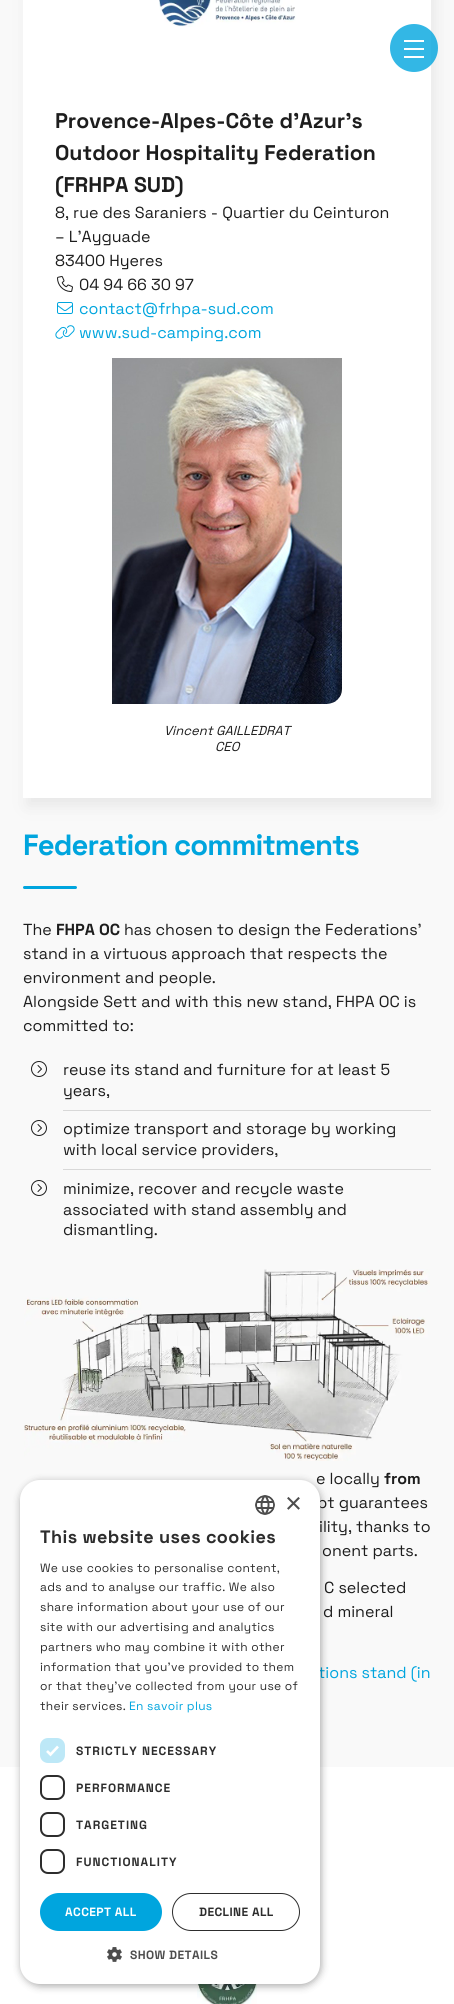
import math
import cairo


def write_spaced(ctx, x, y, s, letter, word):
	ctx.move_to(x, y)
	for ch in s:
		ctx.show_text(ch)
		ctx.rel_move_to(letter + word * (ch == ' '), 0)

def round_path(ctx, x, y, w, h, r):
	ctx.new_sub_path()
	for i, (u, v) in enumerate([(x + w - r, y + h - r), (x + r, y + h - r), (x + r, y + r), (x + w - r, y + r)]):
		ctx.arc(u, v, r, i * math.pi / 2, (i + 1) * math.pi / 2)
	ctx.close_path()

def blur_box(ctx, x, y, w, h, r, blur, alpha):
	ctx.push_group_with_content(cairo.CONTENT_ALPHA)
	ctx.set_operator(cairo.OPERATOR_SOURCE)
	for i in range(15, -16, -2):
		e = blur * i / 6
		if min(w, h) + 2 * e > 0:
			ctx.set_source_rgba(0, 0, 0, alpha * math.erfc((i - 1) / 8.5) / 2)
			round_path(ctx, x - e, y - e, w + 2 * e, h + 2 * e, max(0, min(r + e + blur * .6, min(w, h) / 2 + e)))
			ctx.fill()
	ctx.mask(ctx.pop_group())

def paste(ctx, path, x, y, w, h):
	ctx.save()
	ctx.set_source_surface(cairo.ImageSurface.create_from_png(path), x, y)
	ctx.rectangle(x, y, w, h)
	ctx.fill()
	ctx.restore()

def draw(ctx):
	ctx.set_source_rgb(0.976, 0.976, 0.976)
	ctx.paint()
	ctx.set_source_rgb(0.286, 0.286, 0.286)
	blur_box(ctx, 27, -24, 408, 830, 0, 8, 0.1)
	ctx.set_source_rgb(1, 1, 1)
	ctx.rectangle(23, 0, 408, 798)
	ctx.fill()
	ctx.set_source_rgba(0, 0.647, 0.871, 0.8)
	ctx.arc(414, 48, 24, 0, 2 * math.pi)
	ctx.fill()
	ctx.set_source_rgb(1, 1, 1)
	ctx.rectangle(404, 48, 20, 2)
	ctx.rectangle(404, 40, 20, 2)
	ctx.rectangle(404, 56, 20, 2)
	ctx.fill()
	paste(ctx, 'media/1.png', 159, 0, 137, 27)
	ctx.select_font_face('Space Grotesk', cairo.FONT_SLANT_NORMAL, cairo.FONT_WEIGHT_BOLD)
	ctx.set_font_size(21.25)
	ctx.set_source_rgb(0.114, 0.114, 0.114)
	for x, y, s in [
		(55, 128, 'Provence-Alpes-Côte d’Azur’s'),
		(55, 160, 'Outdoor Hospitality Federation'),
		(55, 192, '(FRHPA SUD)'),
	]:
		ctx.move_to(x, y)
		ctx.show_text(s)
	ctx.select_font_face('Space Grotesk')
	ctx.set_font_size(16)
	for x, y, s in [
		(55, 218, '8, rue des Saraniers - Quartier du Ceinturon'),
		(55, 242, '– L’Ayguade'),
		(55, 266, '83400 Hyeres'),
	]:
		ctx.move_to(x, y)
		ctx.show_text(s)
	paste(ctx, 'media/2.png', 57, 276, 16, 16)
	ctx.move_to(79, 290)
	ctx.show_text('04 94 66 30 97')
	paste(ctx, 'media/3.png', 57, 302, 16, 12)
	ctx.set_source_rgb(0, 0.647, 0.871)
	ctx.move_to(79, 314)
	ctx.show_text('contact@frhpa-sud.com')
	paste(ctx, 'media/4.png', 55, 325, 20, 14)
	ctx.move_to(79, 338)
	ctx.show_text('www.sud-camping.com')
	paste(ctx, 'media/5.png', 112, 358, 230, 346)
	ctx.select_font_face('Space Grotesk', cairo.FONT_SLANT_ITALIC)
	ctx.set_font_size(13)
	ctx.set_source_rgb(0.114, 0.114, 0.114)
	ctx.move_to(164, 735)
	ctx.show_text('Vincent GAILLEDRAT')
	ctx.move_to(215, 751)
	ctx.show_text('CEO')
	ctx.select_font_face('Space Grotesk', cairo.FONT_SLANT_NORMAL, cairo.FONT_WEIGHT_BOLD)
	ctx.set_font_size(29.25)
	ctx.set_source_rgb(0, 0.647, 0.871)
	write_spaced(ctx, 23, 855, 'Federation commitments', -0.9, 0)
	round_path(ctx, 23, 886, 54, 3, 1.5)
	ctx.fill()
	ctx.select_font_face('Space Grotesk')
	ctx.set_font_size(16)
	ctx.set_source_rgb(0.114, 0.114, 0.114)
	ctx.move_to(23, 935)
	ctx.show_text('The')
	ctx.select_font_face('Space Grotesk', cairo.FONT_SLANT_NORMAL, cairo.FONT_WEIGHT_BOLD)
	ctx.move_to(56, 935)
	ctx.show_text('FHPA OC')
	ctx.select_font_face('Space Grotesk')
	for x, y, s in [
		(124, 935, 'has chosen to design the Federations\''),
		(23, 959, 'stand in a virtuous approach that respects the'),
		(23, 983, 'environment and people.'),
		(23, 1007, 'Alongside Sett and with this new stand, FHPA OC is'),
		(23, 1031, 'committed to:'),
	]:
		ctx.move_to(x, y)
		ctx.show_text(s)
	ctx.set_source_rgb(0.847, 0.847, 0.847)
	ctx.rectangle(63, 1110, 368, 1)
	ctx.fill()
	paste(ctx, 'media/6.png', 31, 1061, 16, 16)
	ctx.set_source_rgb(0.114, 0.114, 0.114)
	ctx.move_to(63, 1075)
	ctx.show_text('reuse its stand and furniture for at least 5')
	ctx.move_to(63, 1096)
	ctx.show_text('years,')
	ctx.set_source_rgb(0.847, 0.847, 0.847)
	ctx.rectangle(63, 1169, 368, 1)
	ctx.fill()
	paste(ctx, 'media/6.png', 31, 1120, 16, 16)
	ctx.set_source_rgb(0.114, 0.114, 0.114)
	ctx.move_to(63, 1134)
	ctx.show_text('optimize transport and storage by working')
	ctx.move_to(63, 1155)
	ctx.show_text('with local service providers,')
	paste(ctx, 'media/6.png', 31, 1180, 16, 16)
	for x, y, s in [
		(63, 1194, 'minimize, recover and recycle waste'),
		(63, 1215, 'associated with stand assembly and'),
		(63, 1235, 'dismantling.'),
	]:
		ctx.move_to(x, y)
		ctx.show_text(s)
	paste(ctx, 'media/7.png', 24, 1269, 406, 192)
	ctx.move_to(316, 1484)
	ctx.show_text('e locally')
	ctx.select_font_face('Space Grotesk', cairo.FONT_SLANT_NORMAL, cairo.FONT_WEIGHT_BOLD)
	ctx.move_to(384, 1484)
	ctx.show_text('from')
	ctx.select_font_face('Space Grotesk')
	for x, y, s in [
		(317, 1508, 'pt guarantees'),
		(319, 1532, 'ility, thanks to'),
		(322, 1556, 'onent parts.'),
		(324, 1593, 'C selected'),
		(323, 1617, 'd mineral'),
	]:
		ctx.move_to(x, y)
		ctx.show_text(s)
	ctx.set_source_rgb(0, 0.647, 0.871)
	ctx.move_to(318, 1678)
	ctx.show_text('tions stand (in')
	ctx.set_source_rgb(1, 1, 1)
	ctx.rectangle(0, 1767, 454, 237)
	ctx.fill()
	paste(ctx, 'media/10.png', 197, 1984, 60, 20)
	ctx.set_source_rgb(0, 0, 0)
	blur_box(ctx, 21, 1482, 300, 504, 20, 4, 0.35)
	ctx.set_source_rgb(1, 1, 1)
	round_path(ctx, 20, 1480, 300, 504, 20)
	ctx.fill()
	paste(ctx, 'media/8.png', 255, 1495, 20, 20)
	ctx.select_font_face('Liberation Sans')
	ctx.set_font_size(29)
	ctx.set_source_rgb(0.302, 0.302, 0.302)
	ctx.move_to(285, 1513)
	ctx.show_text('×')
	ctx.select_font_face('Space Grotesk', cairo.FONT_SLANT_NORMAL, cairo.FONT_WEIGHT_BOLD)
	ctx.set_font_size(18)
	ctx.set_source_rgb(0.176, 0.176, 0.176)
	write_spaced(ctx, 40, 1543, 'This website uses cookies', 0.4, 0)
	ctx.select_font_face('Space Grotesk')
	ctx.set_font_size(12)
	for x, y, s in [
		(40, 1572, 'We use cookies to personalise content,'),
		(40, 1591, 'ads and to analyse our traffic. We also'),
		(40, 1611, 'share information about your use of our'),
		(40, 1631, 'site with our advertising and analytics'),
		(40, 1651, 'partners who may combine it with other'),
		(40, 1671, 'information that you’ve provided to them'),
		(40, 1690, 'or that they’ve collected from your use of'),
		(40, 1710, 'their services.'),
	]:
		write_spaced(ctx, x, y, s, 0.3, 0)
	ctx.set_source_rgb(0, 0.647, 0.871)
	write_spaced(ctx, 129, 1710, 'En savoir plus', 0.3, 0)
	ctx.set_source_rgb(0.741, 0.91, 0.965)
	round_path(ctx, 40, 1738, 25, 25, 8)
	ctx.fill()
	ctx.new_path()
	ctx.move_to(47, 1751)
	ctx.line_to(50.5, 1754.5)
	ctx.line_to(58, 1746.5)
	ctx.set_source_rgb(1, 1, 1)
	ctx.set_line_width(2.6)
	ctx.stroke()
	ctx.select_font_face('Space Grotesk', cairo.FONT_SLANT_NORMAL, cairo.FONT_WEIGHT_BOLD)
	ctx.set_source_rgb(0.176, 0.176, 0.176)
	write_spaced(ctx, 76, 1755, 'STRICTLY NECESSARY', 1, 0)
	round_path(ctx, 41, 1776, 23, 23, 7)
	ctx.set_line_width(2)
	ctx.stroke()
	write_spaced(ctx, 76, 1792, 'PERFORMANCE', 1, 0)
	round_path(ctx, 41, 1813, 23, 23, 7)
	ctx.stroke()
	write_spaced(ctx, 76, 1829, 'TARGETING', 1, 0)
	round_path(ctx, 41, 1850, 23, 23, 7)
	ctx.stroke()
	write_spaced(ctx, 76, 1866, 'FUNCTIONALITY', 1, 0)
	ctx.set_source_rgb(0, 0.647, 0.871)
	round_path(ctx, 40, 1893, 122, 38, 19)
	ctx.fill()
	ctx.set_source_rgb(1, 1, 1)
	write_spaced(ctx, 65, 1916, 'ACCEPT ALL', 0.4, 0)
	round_path(ctx, 172.5, 1893.5, 127, 37, 18.5)
	ctx.set_source_rgb(0.176, 0.176, 0.176)
	ctx.set_line_width(1)
	ctx.stroke()
	write_spaced(ctx, 199, 1916, 'DECLINE ALL', 0.4, 0)
	paste(ctx, 'media/9.png', 107, 1947, 15, 15)
	ctx.set_source_rgb(0.302, 0.302, 0.302)
	write_spaced(ctx, 130, 1959, 'SHOW DETAILS', 0.4, 0)


surface = cairo.ImageSurface(cairo.FORMAT_RGB24, 454, 2004)
ctx = cairo.Context(surface)
options = cairo.FontOptions()
options.set_hint_metrics(cairo.HINT_METRICS_OFF)
options.set_hint_style(cairo.HINT_STYLE_NONE)
ctx.set_font_options(options)
ctx.set_miter_limit(4)
draw(ctx)
surface.write_to_png('image.png')
